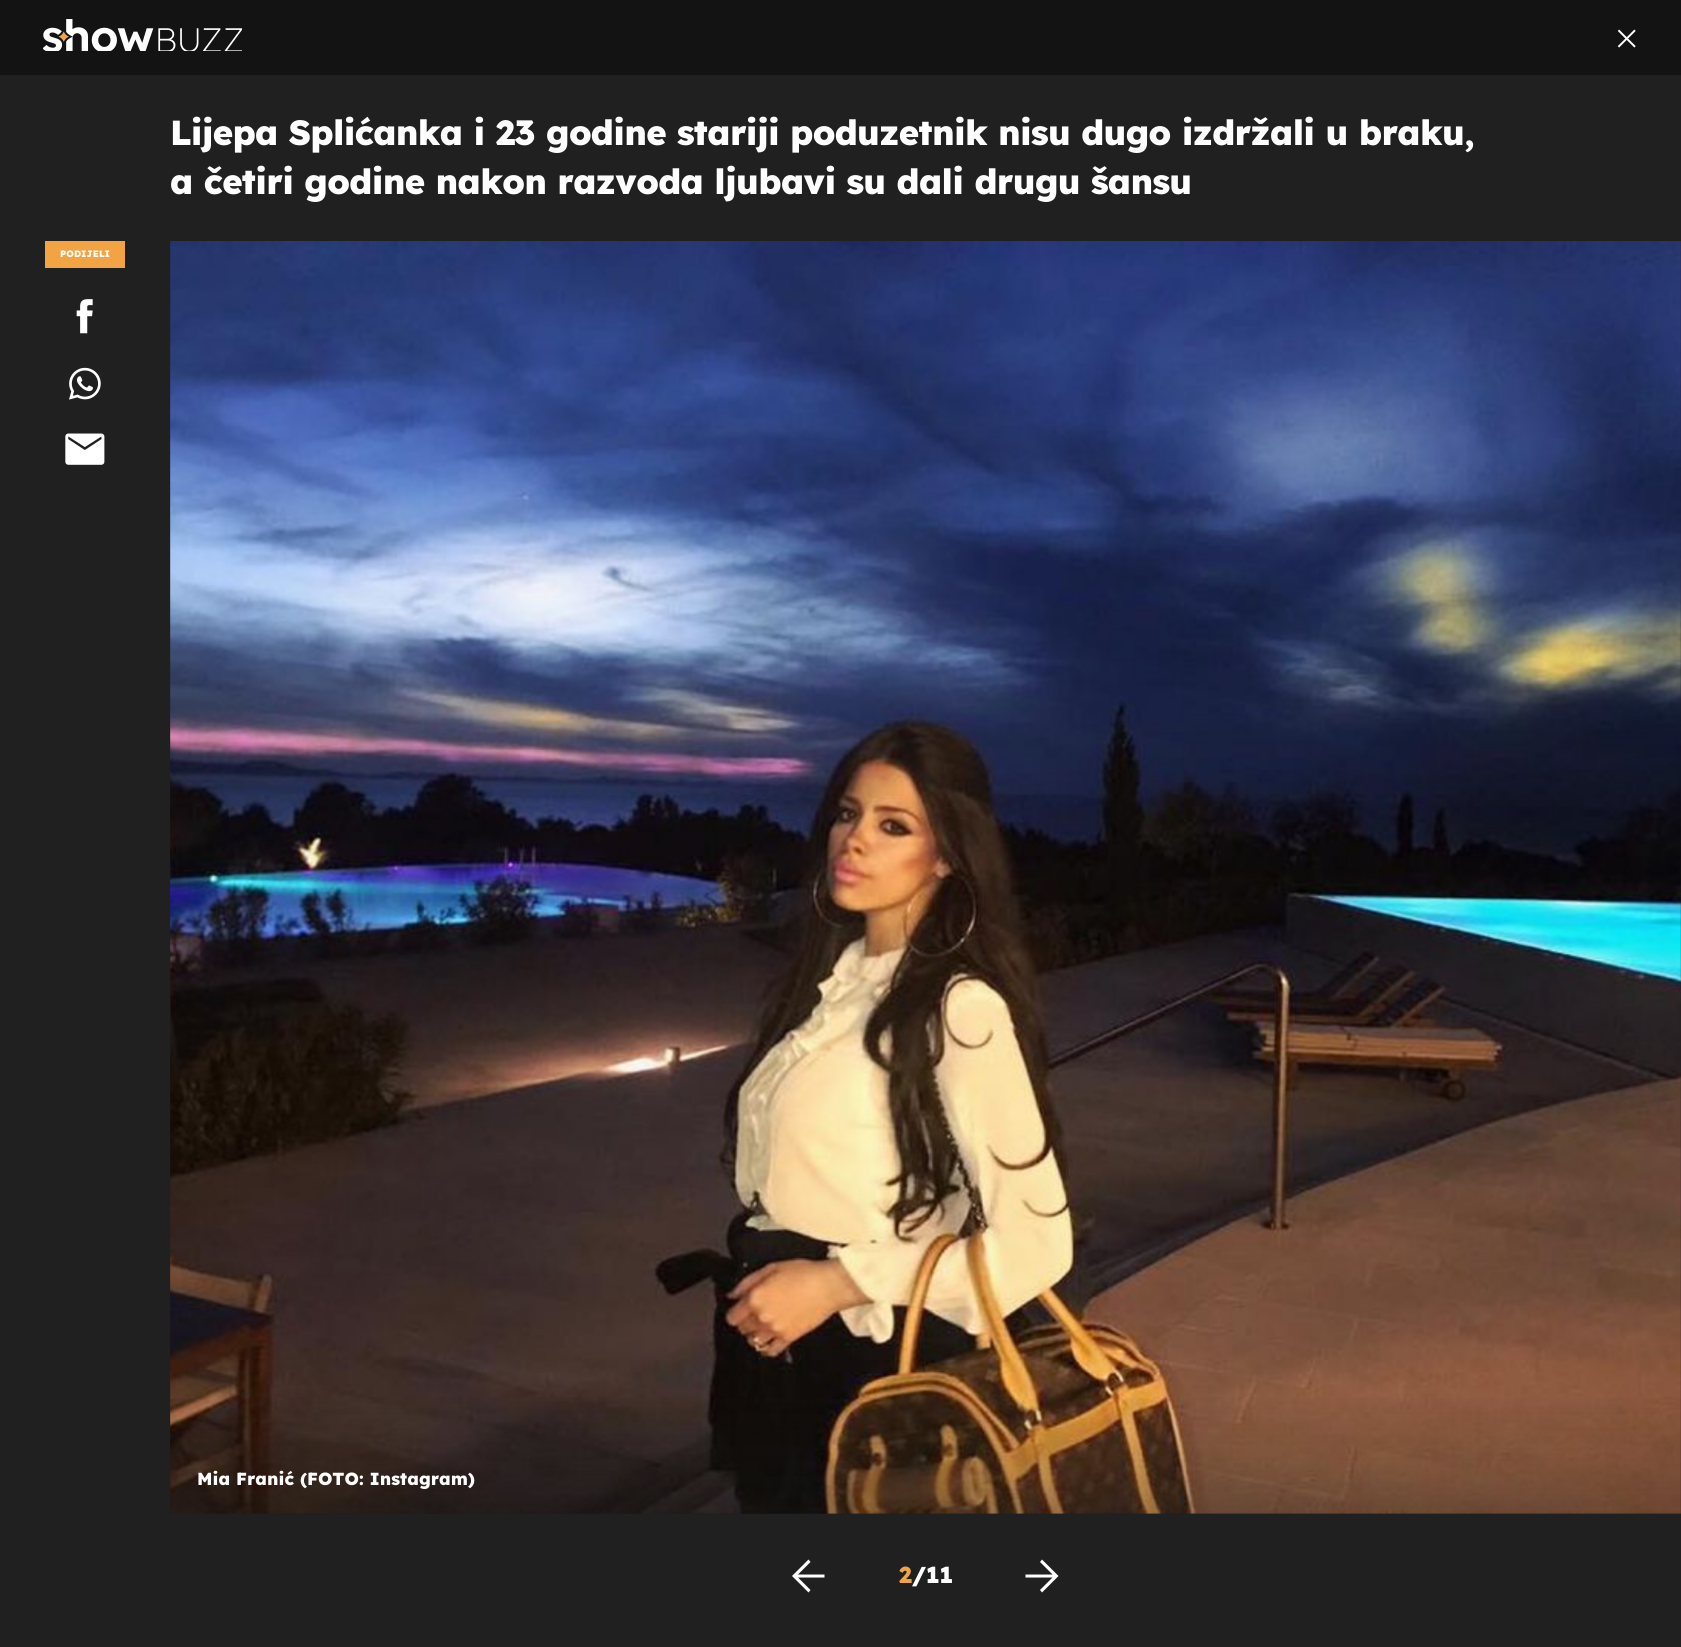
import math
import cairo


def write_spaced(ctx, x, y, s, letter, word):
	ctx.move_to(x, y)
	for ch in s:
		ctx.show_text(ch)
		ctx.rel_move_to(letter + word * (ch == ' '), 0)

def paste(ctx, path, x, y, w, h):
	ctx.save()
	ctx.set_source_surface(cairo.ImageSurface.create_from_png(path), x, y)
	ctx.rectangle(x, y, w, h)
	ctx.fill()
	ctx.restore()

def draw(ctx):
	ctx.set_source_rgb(0.125, 0.125, 0.125)
	ctx.paint()
	ctx.set_source_rgb(0.078, 0.078, 0.078)
	ctx.rectangle(0, 0, 1681, 75)
	ctx.fill()
	paste(ctx, 'media/1.png', 43, 19, 199, 32)
	paste(ctx, 'media/2.png', 1617, 29, 19, 19)
	ctx.select_font_face('Lexend ExtraBold')
	ctx.set_font_size(34.8)
	ctx.set_source_rgb(1, 1, 1)
	write_spaced(ctx, 170, 145, 'Lijepa Splićanka i 23 godine stariji poduzetnik nisu dugo izdržali u braku,', -0.7, 0)
	write_spaced(ctx, 170, 194, 'a četiri godine nakon razvoda ljubavi su dali drugu šansu', -0.7, 0)
	ctx.set_source_rgb(0.949, 0.643, 0.267)
	ctx.rectangle(45, 241, 80, 27)
	ctx.fill()
	ctx.set_font_size(9.25)
	ctx.set_source_rgb(1, 1, 1)
	ctx.move_to(60, 257)
	ctx.show_text('PODIJELI')
	paste(ctx, 'media/3.png', 76, 299, 17, 35)
	paste(ctx, 'media/4.png', 69, 367, 32, 33)
	paste(ctx, 'media/5.png', 65, 433, 40, 32)
	paste(ctx, 'media/6.png', 170, 241, 1511, 1273)
	gradient = cairo.LinearGradient(926, 1514, 926, 1391)
	gradient.add_color_stop_rgba(0, 0.078, 0.078, 0.078, 0.4)
	gradient.add_color_stop_rgba(1, 0.078, 0.078, 0.078, 0)
	ctx.set_source(gradient)
	ctx.rectangle(170, 1398, 1511, 116)
	ctx.fill()
	ctx.set_font_size(17.5)
	ctx.set_source_rgb(1, 1, 1)
	ctx.move_to(197, 1485)
	ctx.show_text('Mia Franić (FOTO: Instagram)')
	ctx.new_path()
	ctx.move_to(808.5, 1592.5)
	ctx.line_to(810.5, 1590)
	ctx.line_to(798, 1577.5)
	ctx.line_to(824.5, 1577.5)
	ctx.line_to(824.5, 1574.5)
	ctx.line_to(798, 1574.5)
	ctx.line_to(810.5, 1562)
	ctx.line_to(808.5, 1559.5)
	ctx.line_to(792, 1576)
	ctx.close_path()
	ctx.fill()
	ctx.set_font_size(23)
	ctx.set_source_rgb(0.949, 0.643, 0.267)
	ctx.move_to(899, 1583)
	ctx.show_text('2')
	ctx.set_source_rgb(1, 1, 1)
	ctx.move_to(912, 1583)
	ctx.show_text('/11')
	ctx.new_path()
	ctx.move_to(1042, 1592.5)
	ctx.line_to(1040, 1590)
	ctx.line_to(1052.5, 1577.5)
	ctx.line_to(1025.5, 1577.5)
	ctx.line_to(1025.5, 1574.5)
	ctx.line_to(1052.5, 1574.5)
	ctx.line_to(1040, 1562)
	ctx.line_to(1042, 1559.5)
	ctx.line_to(1058.5, 1576)
	ctx.close_path()
	ctx.fill()


surface = cairo.ImageSurface(cairo.FORMAT_RGB24, 1681, 1647)
ctx = cairo.Context(surface)
options = cairo.FontOptions()
options.set_hint_metrics(cairo.HINT_METRICS_OFF)
options.set_hint_style(cairo.HINT_STYLE_NONE)
ctx.set_font_options(options)
ctx.set_miter_limit(4)
draw(ctx)
surface.write_to_png('image.png')
